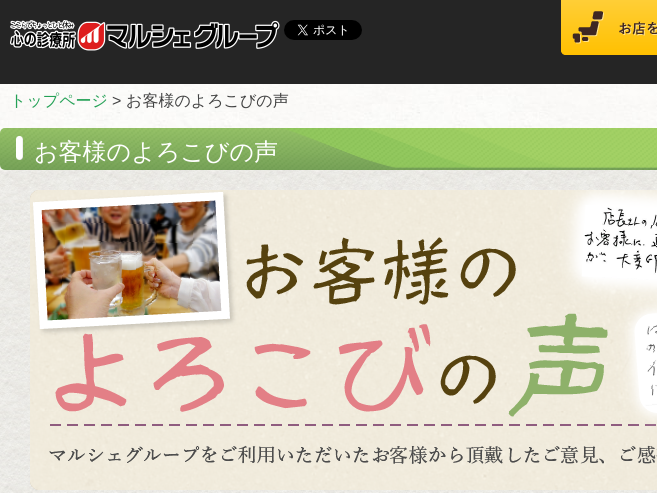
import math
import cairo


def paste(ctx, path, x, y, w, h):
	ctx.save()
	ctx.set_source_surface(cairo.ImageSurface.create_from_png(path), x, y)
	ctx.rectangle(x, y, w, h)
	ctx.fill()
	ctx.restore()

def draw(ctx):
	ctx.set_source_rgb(1, 1, 1)
	ctx.paint()
	paste(ctx, 'media/1.png', 0, 84, 657, 86)
	ctx.set_source_rgb(0.145, 0.145, 0.145)
	ctx.rectangle(0, 0, 657, 84)
	ctx.fill()
	paste(ctx, 'media/2.png', 10, 20, 270, 31)
	paste(ctx, 'media/3.png', 284, 20, 78, 20)
	paste(ctx, 'media/4.png', 561, 0, 96, 55)
	ctx.select_font_face('WenQuanYi Zen Hei Medium')
	ctx.set_font_size(16)
	ctx.set_source_rgb(0.141, 0.631, 0.337)
	ctx.move_to(10, 106)
	ctx.show_text('トップページ')
	ctx.select_font_face('Liberation Sans')
	ctx.set_source_rgb(0.259, 0.259, 0.259)
	ctx.move_to(112, 106)
	ctx.show_text('>')
	ctx.select_font_face('WenQuanYi Zen Hei Medium')
	ctx.move_to(126, 106)
	ctx.show_text('お客様のよろこびの声')
	paste(ctx, 'media/5.png', 0, 128, 657, 42)
	paste(ctx, 'media/6.png', 16, 136, 7, 24)
	ctx.set_font_size(24)
	ctx.set_source_rgb(1, 1, 1)
	ctx.move_to(34, 160)
	ctx.show_text('お客様のよろこびの声')
	paste(ctx, 'media/7.png', 0, 170, 657, 323)
	paste(ctx, 'media/8.png', 30, 190, 627, 300)


surface = cairo.ImageSurface(cairo.FORMAT_RGB24, 657, 493)
ctx = cairo.Context(surface)
options = cairo.FontOptions()
options.set_hint_metrics(cairo.HINT_METRICS_OFF)
options.set_hint_style(cairo.HINT_STYLE_NONE)
ctx.set_font_options(options)
ctx.set_miter_limit(4)
draw(ctx)
surface.write_to_png('image.png')
